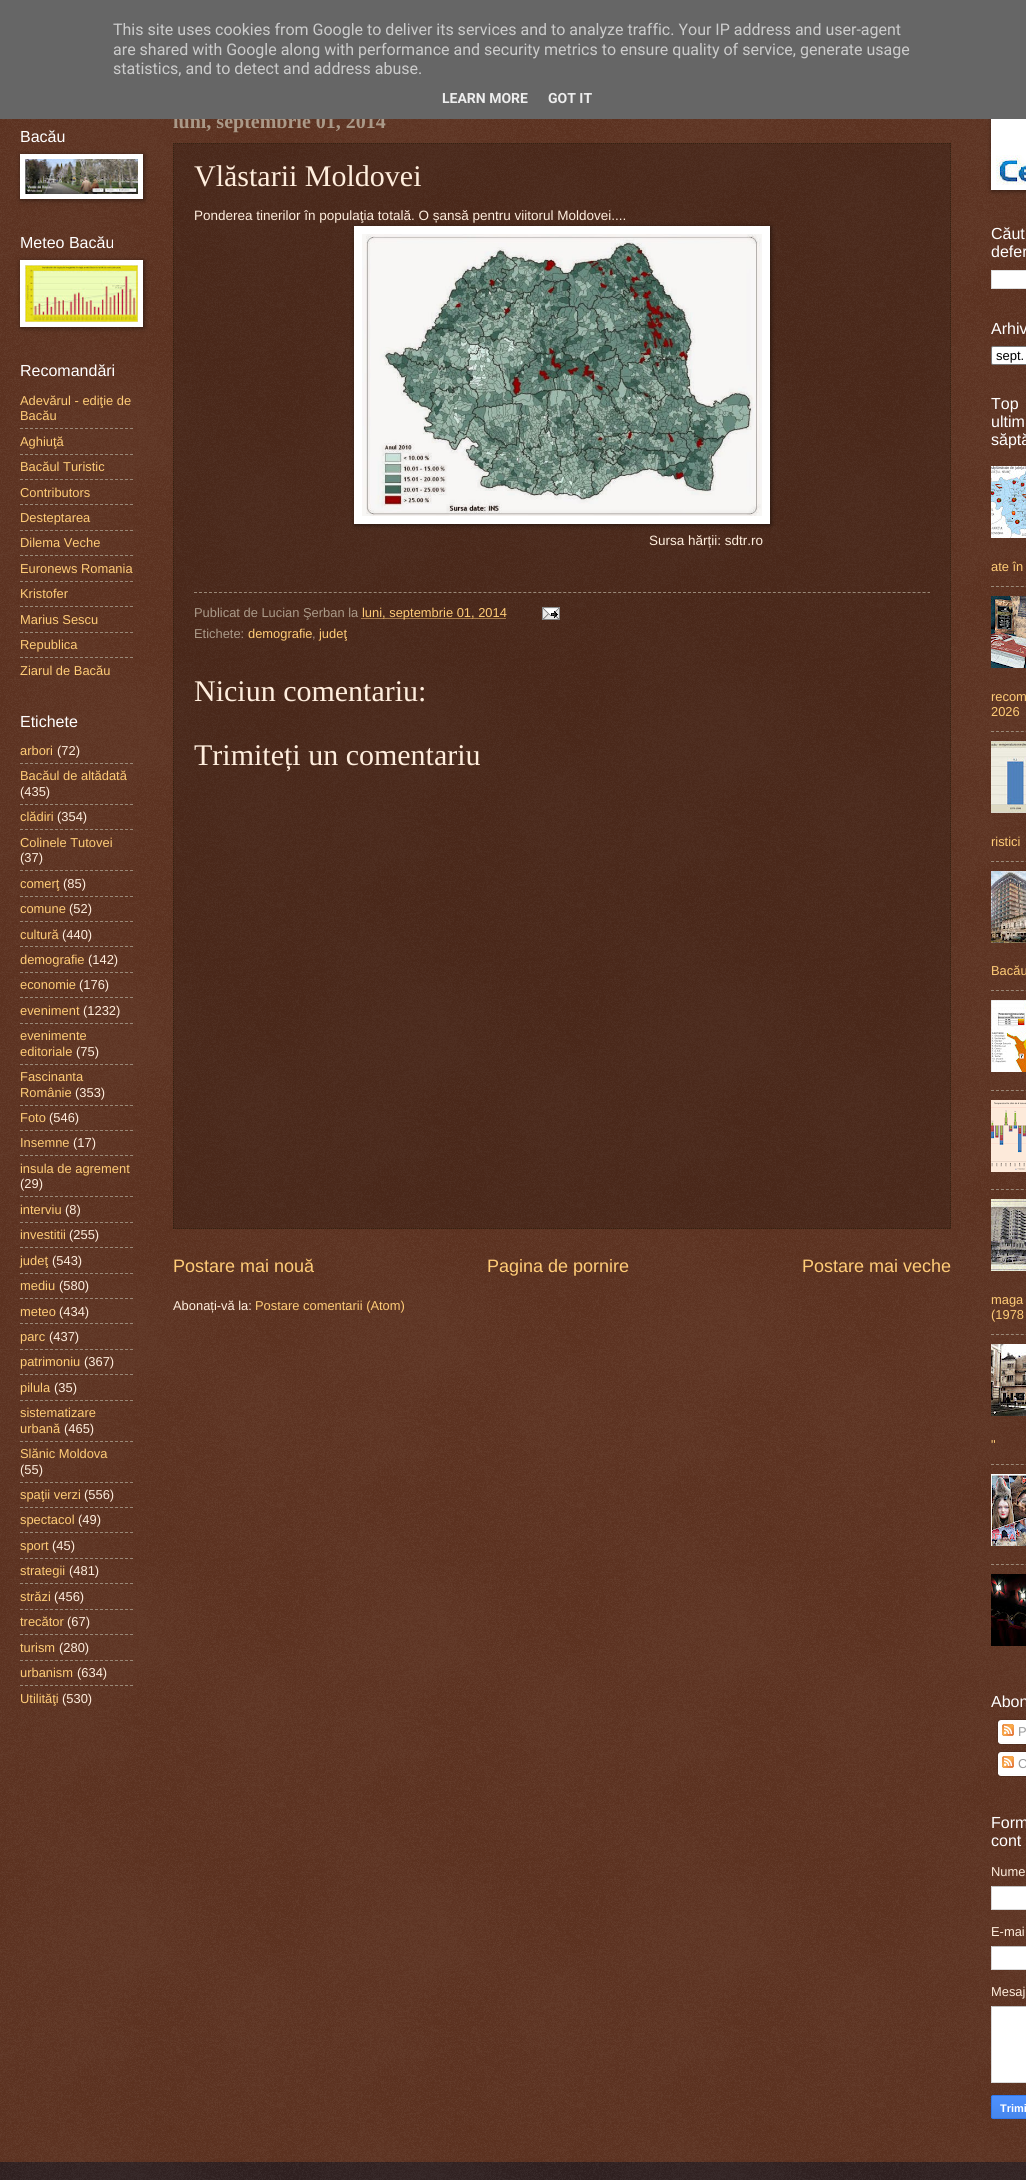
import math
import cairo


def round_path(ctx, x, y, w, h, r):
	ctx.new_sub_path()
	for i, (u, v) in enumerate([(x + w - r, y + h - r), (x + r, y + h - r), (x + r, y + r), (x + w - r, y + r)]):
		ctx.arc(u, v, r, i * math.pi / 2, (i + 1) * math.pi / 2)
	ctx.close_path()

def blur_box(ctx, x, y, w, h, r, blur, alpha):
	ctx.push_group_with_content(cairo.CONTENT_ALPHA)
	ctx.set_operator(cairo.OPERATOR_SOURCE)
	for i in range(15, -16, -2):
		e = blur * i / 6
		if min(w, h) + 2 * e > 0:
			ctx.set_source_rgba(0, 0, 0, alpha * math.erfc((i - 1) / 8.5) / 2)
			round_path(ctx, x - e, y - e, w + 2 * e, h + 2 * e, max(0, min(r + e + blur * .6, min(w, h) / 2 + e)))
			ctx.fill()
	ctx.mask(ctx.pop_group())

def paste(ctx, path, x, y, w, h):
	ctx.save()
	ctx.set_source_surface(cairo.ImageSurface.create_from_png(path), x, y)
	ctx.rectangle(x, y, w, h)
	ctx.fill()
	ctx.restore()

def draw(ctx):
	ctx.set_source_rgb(0.267, 0.082, 0)
	ctx.paint()
	paste(ctx, 'media/1.png', 0, 119, 1026, 2043)
	ctx.select_font_face('Liberation Serif', cairo.FONT_SLANT_NORMAL, cairo.FONT_WEIGHT_BOLD)
	ctx.set_font_size(20)
	ctx.set_source_rgb(0.667, 0.6, 0.533)
	ctx.move_to(173, 128)
	ctx.show_text('luni, septembrie 01, 2014')
	ctx.set_source_rgb(0, 0, 0)
	blur_box(ctx, 992, 111, 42, 80, 0, 2.5, 0.5)
	ctx.set_source_rgb(0.4, 0.4, 0.4)
	ctx.rectangle(0, 0, 1026, 119)
	ctx.fill()
	ctx.select_font_face('Roboto')
	ctx.set_font_size(16)
	ctx.set_source_rgb(0.8, 0.8, 0.8)
	for x, y, s in [
		(113, 35, 'This site uses cookies from Google to deliver its services and to analyze traffic. Your IP address and user-agent'),
		(113, 55, 'are shared with Google along with performance and security metrics to ensure quality of service, generate usage'),
		(113, 74, 'statistics, and to detect and address abuse.'),
	]:
		ctx.move_to(x, y)
		ctx.show_text(s)
	ctx.select_font_face('Roboto', cairo.FONT_SLANT_NORMAL, cairo.FONT_WEIGHT_BOLD)
	ctx.set_font_size(14)
	ctx.set_source_rgb(0.933, 0.933, 0.933)
	ctx.move_to(442, 103)
	ctx.show_text('LEARN MORE')
	ctx.move_to(548, 103)
	ctx.show_text('GOT IT')
	ctx.select_font_face('Arimo')
	ctx.set_font_size(16)
	ctx.set_source_rgb(1, 1, 1)
	ctx.move_to(20, 142)
	ctx.show_text('Bacău')
	ctx.set_source_rgb(0, 0, 0)
	blur_box(ctx, 21, 155, 123, 45, 0, 2.5, 0.5)
	ctx.set_source_rgb(1, 1, 1)
	ctx.rectangle(20, 154, 123, 45)
	ctx.fill()
	paste(ctx, 'media/2.png', 25, 159, 113, 35)
	ctx.move_to(20, 248)
	ctx.show_text('Meteo Bacău')
	ctx.set_source_rgb(0, 0, 0)
	blur_box(ctx, 21, 261, 123, 67, 0, 2.5, 0.5)
	ctx.set_source_rgb(1, 1, 1)
	ctx.rectangle(20, 260, 123, 67)
	ctx.fill()
	paste(ctx, 'media/3.png', 25, 265, 113, 57)
	ctx.move_to(20, 376)
	ctx.show_text('Recomandări')
	ctx.select_font_face('Liberation Sans')
	ctx.set_font_size(12.9)
	ctx.set_source_rgb(1, 0.8, 0.467)
	ctx.move_to(20, 405)
	ctx.show_text('Adevărul - ediţie de')
	ctx.move_to(20, 420)
	ctx.show_text('Bacău')
	ctx.new_path()
	ctx.move_to(20, 428.5)
	ctx.line_to(133, 428.5)
	ctx.set_source_rgb(0.6, 0.533, 0.467)
	ctx.set_line_width(1)
	ctx.set_dash([3, 2])
	ctx.stroke()
	ctx.set_source_rgb(1, 0.8, 0.467)
	ctx.move_to(20, 446)
	ctx.show_text('Aghiuţă')
	ctx.new_path()
	ctx.move_to(20, 454.5)
	ctx.line_to(133, 454.5)
	ctx.set_source_rgb(0.6, 0.533, 0.467)
	ctx.stroke()
	ctx.set_source_rgb(1, 0.8, 0.467)
	ctx.move_to(20, 471)
	ctx.show_text('Bacăul Turistic')
	ctx.new_path()
	ctx.move_to(20, 479.5)
	ctx.line_to(133, 479.5)
	ctx.set_source_rgb(0.6, 0.533, 0.467)
	ctx.stroke()
	ctx.set_source_rgb(1, 0.8, 0.467)
	ctx.move_to(20, 497)
	ctx.show_text('Contributors')
	ctx.new_path()
	ctx.move_to(20, 504.5)
	ctx.line_to(133, 504.5)
	ctx.set_source_rgb(0.6, 0.533, 0.467)
	ctx.stroke()
	ctx.set_source_rgb(1, 0.8, 0.467)
	ctx.move_to(20, 522)
	ctx.show_text('Desteptarea')
	ctx.new_path()
	ctx.move_to(20, 530.5)
	ctx.line_to(133, 530.5)
	ctx.set_source_rgb(0.6, 0.533, 0.467)
	ctx.stroke()
	ctx.set_source_rgb(1, 0.8, 0.467)
	ctx.move_to(20, 547)
	ctx.show_text('Dilema Veche')
	ctx.new_path()
	ctx.move_to(20, 555.5)
	ctx.line_to(133, 555.5)
	ctx.set_source_rgb(0.6, 0.533, 0.467)
	ctx.stroke()
	ctx.set_source_rgb(1, 0.8, 0.467)
	ctx.move_to(20, 573)
	ctx.show_text('Euronews Romania')
	ctx.new_path()
	ctx.move_to(20, 581.5)
	ctx.line_to(133, 581.5)
	ctx.set_source_rgb(0.6, 0.533, 0.467)
	ctx.stroke()
	ctx.set_source_rgb(1, 0.8, 0.467)
	ctx.move_to(20, 598)
	ctx.show_text('Kristofer')
	ctx.new_path()
	ctx.move_to(20, 606.5)
	ctx.line_to(133, 606.5)
	ctx.set_source_rgb(0.6, 0.533, 0.467)
	ctx.stroke()
	ctx.set_source_rgb(1, 0.8, 0.467)
	ctx.move_to(20, 624)
	ctx.show_text('Marius Sescu')
	ctx.new_path()
	ctx.move_to(20, 632.5)
	ctx.line_to(133, 632.5)
	ctx.set_source_rgb(0.6, 0.533, 0.467)
	ctx.stroke()
	ctx.set_source_rgb(1, 0.8, 0.467)
	ctx.move_to(20, 649)
	ctx.show_text('Republica')
	ctx.new_path()
	ctx.move_to(20, 657.5)
	ctx.line_to(133, 657.5)
	ctx.set_source_rgb(0.6, 0.533, 0.467)
	ctx.stroke()
	ctx.set_source_rgb(1, 0.8, 0.467)
	ctx.move_to(20, 675)
	ctx.show_text('Ziarul de Bacău')
	ctx.select_font_face('Arimo')
	ctx.set_font_size(16)
	ctx.set_source_rgb(1, 1, 1)
	ctx.move_to(20, 727)
	ctx.show_text('Etichete')
	ctx.select_font_face('Liberation Sans')
	ctx.set_font_size(12.9)
	ctx.set_source_rgb(1, 0.8, 0.467)
	ctx.move_to(20, 755)
	ctx.show_text('arbori')
	ctx.set_source_rgb(1, 0.933, 0.867)
	ctx.move_to(57, 755)
	ctx.show_text('(72)')
	ctx.new_path()
	ctx.move_to(20, 763.5)
	ctx.line_to(133, 763.5)
	ctx.set_source_rgb(0.6, 0.533, 0.467)
	ctx.stroke()
	ctx.set_source_rgb(1, 0.8, 0.467)
	ctx.move_to(20, 780)
	ctx.show_text('Bacăul de altădată')
	ctx.set_source_rgb(1, 0.933, 0.867)
	ctx.move_to(20, 796)
	ctx.show_text('(435)')
	ctx.new_path()
	ctx.move_to(20, 804.5)
	ctx.line_to(133, 804.5)
	ctx.set_source_rgb(0.6, 0.533, 0.467)
	ctx.stroke()
	ctx.set_source_rgb(1, 0.8, 0.467)
	ctx.move_to(20, 821)
	ctx.show_text('clădiri')
	ctx.set_source_rgb(1, 0.933, 0.867)
	ctx.move_to(57, 821)
	ctx.show_text('(354)')
	ctx.new_path()
	ctx.move_to(20, 829.5)
	ctx.line_to(133, 829.5)
	ctx.set_source_rgb(0.6, 0.533, 0.467)
	ctx.stroke()
	ctx.set_source_rgb(1, 0.8, 0.467)
	ctx.move_to(20, 847)
	ctx.show_text('Colinele Tutovei')
	ctx.set_source_rgb(1, 0.933, 0.867)
	ctx.move_to(20, 862)
	ctx.show_text('(37)')
	ctx.new_path()
	ctx.move_to(20, 870.5)
	ctx.line_to(133, 870.5)
	ctx.set_source_rgb(0.6, 0.533, 0.467)
	ctx.stroke()
	ctx.set_source_rgb(1, 0.8, 0.467)
	ctx.move_to(20, 888)
	ctx.show_text('comerţ')
	ctx.set_source_rgb(1, 0.933, 0.867)
	ctx.move_to(63, 888)
	ctx.show_text('(85)')
	ctx.new_path()
	ctx.move_to(20, 896.5)
	ctx.line_to(133, 896.5)
	ctx.set_source_rgb(0.6, 0.533, 0.467)
	ctx.stroke()
	ctx.set_source_rgb(1, 0.8, 0.467)
	ctx.move_to(20, 913)
	ctx.show_text('comune')
	ctx.set_source_rgb(1, 0.933, 0.867)
	ctx.move_to(69, 913)
	ctx.show_text('(52)')
	ctx.new_path()
	ctx.move_to(20, 921.5)
	ctx.line_to(133, 921.5)
	ctx.set_source_rgb(0.6, 0.533, 0.467)
	ctx.stroke()
	ctx.set_source_rgb(1, 0.8, 0.467)
	ctx.move_to(20, 939)
	ctx.show_text('cultură')
	ctx.set_source_rgb(1, 0.933, 0.867)
	ctx.move_to(62, 939)
	ctx.show_text('(440)')
	ctx.new_path()
	ctx.move_to(20, 946.5)
	ctx.line_to(133, 946.5)
	ctx.set_source_rgb(0.6, 0.533, 0.467)
	ctx.stroke()
	ctx.set_source_rgb(1, 0.8, 0.467)
	ctx.move_to(20, 964)
	ctx.show_text('demografie')
	ctx.set_source_rgb(1, 0.933, 0.867)
	ctx.move_to(88, 964)
	ctx.show_text('(142)')
	ctx.new_path()
	ctx.move_to(20, 972.5)
	ctx.line_to(133, 972.5)
	ctx.set_source_rgb(0.6, 0.533, 0.467)
	ctx.stroke()
	ctx.set_source_rgb(1, 0.8, 0.467)
	ctx.move_to(20, 989)
	ctx.show_text('economie')
	ctx.set_source_rgb(1, 0.933, 0.867)
	ctx.move_to(79, 989)
	ctx.show_text('(176)')
	ctx.new_path()
	ctx.move_to(20, 997.5)
	ctx.line_to(133, 997.5)
	ctx.set_source_rgb(0.6, 0.533, 0.467)
	ctx.stroke()
	ctx.set_source_rgb(1, 0.8, 0.467)
	ctx.move_to(20, 1015)
	ctx.show_text('eveniment')
	ctx.set_source_rgb(1, 0.933, 0.867)
	ctx.move_to(83, 1015)
	ctx.show_text('(1232)')
	ctx.new_path()
	ctx.move_to(20, 1023.5)
	ctx.line_to(133, 1023.5)
	ctx.set_source_rgb(0.6, 0.533, 0.467)
	ctx.stroke()
	ctx.set_source_rgb(1, 0.8, 0.467)
	ctx.move_to(20, 1040)
	ctx.show_text('evenimente')
	ctx.move_to(20, 1056)
	ctx.show_text('editoriale')
	ctx.set_source_rgb(1, 0.933, 0.867)
	ctx.move_to(76, 1056)
	ctx.show_text('(75)')
	ctx.new_path()
	ctx.move_to(20, 1064.5)
	ctx.line_to(133, 1064.5)
	ctx.set_source_rgb(0.6, 0.533, 0.467)
	ctx.stroke()
	ctx.set_source_rgb(1, 0.8, 0.467)
	ctx.move_to(20, 1081)
	ctx.show_text('Fascinanta')
	ctx.move_to(20, 1097)
	ctx.show_text('Românie')
	ctx.set_source_rgb(1, 0.933, 0.867)
	ctx.move_to(75, 1097)
	ctx.show_text('(353)')
	ctx.new_path()
	ctx.move_to(20, 1105.5)
	ctx.line_to(133, 1105.5)
	ctx.set_source_rgb(0.6, 0.533, 0.467)
	ctx.stroke()
	ctx.set_source_rgb(1, 0.8, 0.467)
	ctx.move_to(20, 1122)
	ctx.show_text('Foto')
	ctx.set_source_rgb(1, 0.933, 0.867)
	ctx.move_to(49, 1122)
	ctx.show_text('(546)')
	ctx.new_path()
	ctx.move_to(20, 1130.5)
	ctx.line_to(133, 1130.5)
	ctx.set_source_rgb(0.6, 0.533, 0.467)
	ctx.stroke()
	ctx.set_source_rgb(1, 0.8, 0.467)
	ctx.move_to(20, 1147)
	ctx.show_text('Insemne')
	ctx.set_source_rgb(1, 0.933, 0.867)
	ctx.move_to(73, 1147)
	ctx.show_text('(17)')
	ctx.new_path()
	ctx.move_to(20, 1155.5)
	ctx.line_to(133, 1155.5)
	ctx.set_source_rgb(0.6, 0.533, 0.467)
	ctx.stroke()
	ctx.set_source_rgb(1, 0.8, 0.467)
	ctx.move_to(20, 1173)
	ctx.show_text('insula de agrement')
	ctx.set_source_rgb(1, 0.933, 0.867)
	ctx.move_to(20, 1188)
	ctx.show_text('(29)')
	ctx.new_path()
	ctx.move_to(20, 1196.5)
	ctx.line_to(133, 1196.5)
	ctx.set_source_rgb(0.6, 0.533, 0.467)
	ctx.stroke()
	ctx.set_source_rgb(1, 0.8, 0.467)
	ctx.move_to(20, 1214)
	ctx.show_text('interviu')
	ctx.set_source_rgb(1, 0.933, 0.867)
	ctx.move_to(65, 1214)
	ctx.show_text('(8)')
	ctx.new_path()
	ctx.move_to(20, 1222.5)
	ctx.line_to(133, 1222.5)
	ctx.set_source_rgb(0.6, 0.533, 0.467)
	ctx.stroke()
	ctx.set_source_rgb(1, 0.8, 0.467)
	ctx.move_to(20, 1239)
	ctx.show_text('investitii')
	ctx.set_source_rgb(1, 0.933, 0.867)
	ctx.move_to(69, 1239)
	ctx.show_text('(255)')
	ctx.new_path()
	ctx.move_to(20, 1247.5)
	ctx.line_to(133, 1247.5)
	ctx.set_source_rgb(0.6, 0.533, 0.467)
	ctx.stroke()
	ctx.set_source_rgb(1, 0.8, 0.467)
	ctx.move_to(20, 1265)
	ctx.show_text('judeţ')
	ctx.set_source_rgb(1, 0.933, 0.867)
	ctx.move_to(52, 1265)
	ctx.show_text('(543)')
	ctx.new_path()
	ctx.move_to(20, 1273.5)
	ctx.line_to(133, 1273.5)
	ctx.set_source_rgb(0.6, 0.533, 0.467)
	ctx.stroke()
	ctx.set_source_rgb(1, 0.8, 0.467)
	ctx.move_to(20, 1290)
	ctx.show_text('mediu')
	ctx.set_source_rgb(1, 0.933, 0.867)
	ctx.move_to(59, 1290)
	ctx.show_text('(580)')
	ctx.new_path()
	ctx.move_to(20, 1298.5)
	ctx.line_to(133, 1298.5)
	ctx.set_source_rgb(0.6, 0.533, 0.467)
	ctx.stroke()
	ctx.set_source_rgb(1, 0.8, 0.467)
	ctx.move_to(20, 1316)
	ctx.show_text('meteo')
	ctx.set_source_rgb(1, 0.933, 0.867)
	ctx.move_to(59, 1316)
	ctx.show_text('(434)')
	ctx.new_path()
	ctx.move_to(20, 1323.5)
	ctx.line_to(133, 1323.5)
	ctx.set_source_rgb(0.6, 0.533, 0.467)
	ctx.stroke()
	ctx.set_source_rgb(1, 0.8, 0.467)
	ctx.move_to(20, 1341)
	ctx.show_text('parc')
	ctx.set_source_rgb(1, 0.933, 0.867)
	ctx.move_to(49, 1341)
	ctx.show_text('(437)')
	ctx.new_path()
	ctx.move_to(20, 1349.5)
	ctx.line_to(133, 1349.5)
	ctx.set_source_rgb(0.6, 0.533, 0.467)
	ctx.stroke()
	ctx.set_source_rgb(1, 0.8, 0.467)
	ctx.move_to(20, 1366)
	ctx.show_text('patrimoniu')
	ctx.set_source_rgb(1, 0.933, 0.867)
	ctx.move_to(84, 1366)
	ctx.show_text('(367)')
	ctx.new_path()
	ctx.move_to(20, 1374.5)
	ctx.line_to(133, 1374.5)
	ctx.set_source_rgb(0.6, 0.533, 0.467)
	ctx.stroke()
	ctx.set_source_rgb(1, 0.8, 0.467)
	ctx.move_to(20, 1392)
	ctx.show_text('pilula')
	ctx.set_source_rgb(1, 0.933, 0.867)
	ctx.move_to(54, 1392)
	ctx.show_text('(35)')
	ctx.new_path()
	ctx.move_to(20, 1400.5)
	ctx.line_to(133, 1400.5)
	ctx.set_source_rgb(0.6, 0.533, 0.467)
	ctx.stroke()
	ctx.set_source_rgb(1, 0.8, 0.467)
	ctx.move_to(20, 1417)
	ctx.show_text('sistematizare')
	ctx.move_to(20, 1433)
	ctx.show_text('urbană')
	ctx.set_source_rgb(1, 0.933, 0.867)
	ctx.move_to(64, 1433)
	ctx.show_text('(465)')
	ctx.new_path()
	ctx.move_to(20, 1441.5)
	ctx.line_to(133, 1441.5)
	ctx.set_source_rgb(0.6, 0.533, 0.467)
	ctx.stroke()
	ctx.set_source_rgb(1, 0.8, 0.467)
	ctx.move_to(20, 1458)
	ctx.show_text('Slănic Moldova')
	ctx.set_source_rgb(1, 0.933, 0.867)
	ctx.move_to(20, 1474)
	ctx.show_text('(55)')
	ctx.new_path()
	ctx.move_to(20, 1482.5)
	ctx.line_to(133, 1482.5)
	ctx.set_source_rgb(0.6, 0.533, 0.467)
	ctx.stroke()
	ctx.set_source_rgb(1, 0.8, 0.467)
	ctx.move_to(20, 1499)
	ctx.show_text('spaţii verzi')
	ctx.set_source_rgb(1, 0.933, 0.867)
	ctx.move_to(84, 1499)
	ctx.show_text('(556)')
	ctx.new_path()
	ctx.move_to(20, 1507.5)
	ctx.line_to(133, 1507.5)
	ctx.set_source_rgb(0.6, 0.533, 0.467)
	ctx.stroke()
	ctx.set_source_rgb(1, 0.8, 0.467)
	ctx.move_to(20, 1524)
	ctx.show_text('spectacol')
	ctx.set_source_rgb(1, 0.933, 0.867)
	ctx.move_to(78, 1524)
	ctx.show_text('(49)')
	ctx.new_path()
	ctx.move_to(20, 1532.5)
	ctx.line_to(133, 1532.5)
	ctx.set_source_rgb(0.6, 0.533, 0.467)
	ctx.stroke()
	ctx.set_source_rgb(1, 0.8, 0.467)
	ctx.move_to(20, 1550)
	ctx.show_text('sport')
	ctx.set_source_rgb(1, 0.933, 0.867)
	ctx.move_to(52, 1550)
	ctx.show_text('(45)')
	ctx.new_path()
	ctx.move_to(20, 1558.5)
	ctx.line_to(133, 1558.5)
	ctx.set_source_rgb(0.6, 0.533, 0.467)
	ctx.stroke()
	ctx.set_source_rgb(1, 0.8, 0.467)
	ctx.move_to(20, 1575)
	ctx.show_text('strategii')
	ctx.set_source_rgb(1, 0.933, 0.867)
	ctx.move_to(69, 1575)
	ctx.show_text('(481)')
	ctx.new_path()
	ctx.move_to(20, 1583.5)
	ctx.line_to(133, 1583.5)
	ctx.set_source_rgb(0.6, 0.533, 0.467)
	ctx.stroke()
	ctx.set_source_rgb(1, 0.8, 0.467)
	ctx.move_to(20, 1601)
	ctx.show_text('străzi')
	ctx.set_source_rgb(1, 0.933, 0.867)
	ctx.move_to(54, 1601)
	ctx.show_text('(456)')
	ctx.new_path()
	ctx.move_to(20, 1609.5)
	ctx.line_to(133, 1609.5)
	ctx.set_source_rgb(0.6, 0.533, 0.467)
	ctx.stroke()
	ctx.set_source_rgb(1, 0.8, 0.467)
	ctx.move_to(20, 1626)
	ctx.show_text('trecător')
	ctx.set_source_rgb(1, 0.933, 0.867)
	ctx.move_to(67, 1626)
	ctx.show_text('(67)')
	ctx.new_path()
	ctx.move_to(20, 1634.5)
	ctx.line_to(133, 1634.5)
	ctx.set_source_rgb(0.6, 0.533, 0.467)
	ctx.stroke()
	ctx.set_source_rgb(1, 0.8, 0.467)
	ctx.move_to(20, 1652)
	ctx.show_text('turism')
	ctx.set_source_rgb(1, 0.933, 0.867)
	ctx.move_to(59, 1652)
	ctx.show_text('(280)')
	ctx.new_path()
	ctx.move_to(20, 1660.5)
	ctx.line_to(133, 1660.5)
	ctx.set_source_rgb(0.6, 0.533, 0.467)
	ctx.stroke()
	ctx.set_source_rgb(1, 0.8, 0.467)
	ctx.move_to(20, 1677)
	ctx.show_text('urbanism')
	ctx.set_source_rgb(1, 0.933, 0.867)
	ctx.move_to(77, 1677)
	ctx.show_text('(634)')
	ctx.new_path()
	ctx.move_to(20, 1685.5)
	ctx.line_to(133, 1685.5)
	ctx.set_source_rgb(0.6, 0.533, 0.467)
	ctx.stroke()
	ctx.set_source_rgb(1, 0.8, 0.467)
	ctx.move_to(20, 1703)
	ctx.show_text('Utilităţi')
	ctx.set_source_rgb(1, 0.933, 0.867)
	ctx.move_to(62, 1703)
	ctx.show_text('(530)')
	ctx.set_source_rgba(0, 0, 0, 0.2)
	ctx.rectangle(173, 143, 778, 1086)
	ctx.fill()
	ctx.new_path()
	ctx.move_to(173, 143.5)
	ctx.line_to(951, 143.5)
	ctx.set_source_rgb(0.2, 0.133, 0.067)
	ctx.set_dash([1, 1])
	ctx.stroke()
	ctx.new_path()
	ctx.move_to(950.5, 143)
	ctx.line_to(950.5, 1229)
	ctx.stroke()
	ctx.new_path()
	ctx.move_to(173, 1228.5)
	ctx.line_to(951, 1228.5)
	ctx.stroke()
	ctx.new_path()
	ctx.move_to(173.5, 143)
	ctx.line_to(173.5, 1229)
	ctx.stroke()
	ctx.select_font_face('Liberation Serif')
	ctx.set_font_size(30)
	ctx.set_source_rgb(1, 0.933, 0.867)
	ctx.move_to(194, 186)
	ctx.show_text('Vlăstarii Moldovei')
	ctx.select_font_face('Liberation Sans')
	ctx.set_font_size(13.5)
	ctx.move_to(194, 220)
	ctx.show_text('Ponderea tinerilor în populaţia totală. O șansă pentru viitorul Moldovei....')
	ctx.set_source_rgb(0, 0, 0)
	blur_box(ctx, 355, 227, 416, 298, 0, 2.5, 0.5)
	ctx.set_source_rgb(1, 1, 1)
	ctx.rectangle(354, 226, 416, 298)
	ctx.fill()
	paste(ctx, 'media/4.png', 362, 234, 400, 282)
	ctx.set_source_rgb(1, 0.933, 0.867)
	ctx.move_to(649, 545)
	ctx.show_text('Sursa hărții: sdtr.ro')
	ctx.new_path()
	ctx.move_to(194, 592.5)
	ctx.line_to(930, 592.5)
	ctx.set_source_rgb(0.6, 0.533, 0.467)
	ctx.set_dash([3, 1.99])
	ctx.stroke()
	ctx.set_font_size(12.9)
	ctx.set_source_rgb(0.667, 0.6, 0.533)
	ctx.move_to(194, 617)
	ctx.show_text('Publicat de Lucian Şerban la')
	ctx.new_path()
	ctx.move_to(361.5, 618.5)
	ctx.line_to(506, 618.5)
	ctx.set_source_rgb(1, 0.8, 0.467)
	ctx.set_dash([1, 1])
	ctx.stroke()
	ctx.move_to(362, 617)
	ctx.show_text('luni, septembrie 01, 2014')
	paste(ctx, 'media/5.png', 542, 607, 18, 13)
	ctx.set_source_rgb(0.667, 0.6, 0.533)
	ctx.move_to(194, 638)
	ctx.show_text('Etichete:')
	ctx.set_source_rgb(1, 0.8, 0.467)
	ctx.move_to(248, 638)
	ctx.show_text('demografie')
	ctx.set_source_rgb(0.667, 0.6, 0.533)
	ctx.move_to(312, 638)
	ctx.show_text(',')
	ctx.set_source_rgb(1, 0.8, 0.467)
	ctx.move_to(319, 638)
	ctx.show_text('judeţ')
	ctx.select_font_face('Liberation Serif')
	ctx.set_font_size(30)
	ctx.set_source_rgb(1, 0.933, 0.867)
	ctx.move_to(194, 701)
	ctx.show_text('Niciun comentariu:')
	ctx.move_to(194, 765)
	ctx.show_text('Trimiteți un comentariu')
	ctx.select_font_face('Liberation Sans')
	ctx.set_font_size(18)
	ctx.set_source_rgb(1, 0.8, 0.467)
	for x, y, s in [
		(173, 1272, 'Postare mai nouă'),
		(487, 1272, 'Pagina de pornire'),
		(802, 1272, 'Postare mai veche'),
	]:
		ctx.move_to(x, y)
		ctx.show_text(s)
	ctx.set_font_size(12.9)
	ctx.set_source_rgb(1, 0.933, 0.867)
	ctx.move_to(173, 1310)
	ctx.show_text('Abonați-vă la:')
	ctx.set_source_rgb(1, 0.8, 0.467)
	ctx.move_to(255, 1310)
	ctx.show_text('Postare comentarii (Atom)')
	ctx.set_source_rgb(1, 1, 1)
	ctx.rectangle(991, 119, 35, 71)
	ctx.fill()
	paste(ctx, 'media/6.png', 996, 155, 30, 30)
	ctx.select_font_face('Arimo')
	ctx.set_font_size(16)
	ctx.move_to(991, 239)
	ctx.show_text('Căut')
	ctx.move_to(991, 257)
	ctx.show_text('defer')
	ctx.rectangle(991.5, 270.5, 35, 18)
	ctx.fill_preserve()
	ctx.set_source_rgb(0.867, 0.867, 0.867)
	ctx.set_dash([])
	ctx.stroke()
	ctx.set_source_rgb(1, 1, 1)
	ctx.move_to(991, 334)
	ctx.show_text('Arhiv')
	round_path(ctx, 991.5, 346.5, 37, 18, 1.5)
	ctx.fill_preserve()
	ctx.set_source_rgb(0.463, 0.463, 0.463)
	ctx.stroke()
	ctx.select_font_face('Liberation Sans')
	ctx.set_font_size(13)
	ctx.set_source_rgb(0, 0, 0)
	ctx.move_to(996, 360)
	ctx.show_text('sept.')
	ctx.select_font_face('Arimo')
	ctx.set_font_size(16)
	ctx.set_source_rgb(1, 1, 1)
	for x, y, s in [
		(991, 409, 'Top'),
		(991, 427, 'ultim'),
		(991, 445, 'săptă'),
	]:
		ctx.move_to(x, y)
		ctx.show_text(s)
	paste(ctx, 'media/7.png', 991, 466, 35, 72)
	ctx.select_font_face('Liberation Sans')
	ctx.set_font_size(12.9)
	ctx.set_source_rgb(1, 0.8, 0.467)
	ctx.move_to(991, 571)
	ctx.show_text('ate în')
	ctx.new_path()
	ctx.move_to(991, 586.5)
	ctx.line_to(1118, 586.5)
	ctx.set_source_rgb(0.6, 0.533, 0.467)
	ctx.set_dash([3, 1.96])
	ctx.stroke()
	paste(ctx, 'media/8.png', 991, 596, 35, 72)
	ctx.set_source_rgb(1, 0.8, 0.467)
	ctx.move_to(991, 701)
	ctx.show_text('recom')
	ctx.move_to(991, 716)
	ctx.show_text('2026')
	ctx.new_path()
	ctx.move_to(991, 731.5)
	ctx.line_to(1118, 731.5)
	ctx.set_source_rgb(0.6, 0.533, 0.467)
	ctx.stroke()
	paste(ctx, 'media/9.png', 991, 741, 35, 72)
	ctx.set_source_rgb(1, 0.8, 0.467)
	ctx.move_to(991, 846)
	ctx.show_text('ristici')
	ctx.new_path()
	ctx.move_to(991, 861.5)
	ctx.line_to(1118, 861.5)
	ctx.set_source_rgb(0.6, 0.533, 0.467)
	ctx.stroke()
	paste(ctx, 'media/10.png', 991, 871, 35, 72)
	ctx.set_source_rgb(1, 0.8, 0.467)
	ctx.move_to(991, 975)
	ctx.show_text('Bacău')
	ctx.new_path()
	ctx.move_to(991, 990.5)
	ctx.line_to(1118, 990.5)
	ctx.set_source_rgb(0.6, 0.533, 0.467)
	ctx.stroke()
	paste(ctx, 'media/11.png', 991, 1000, 35, 72)
	ctx.new_path()
	ctx.move_to(991, 1090.5)
	ctx.line_to(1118, 1090.5)
	ctx.stroke()
	paste(ctx, 'media/12.png', 991, 1100, 35, 72)
	ctx.new_path()
	ctx.move_to(991, 1189.5)
	ctx.line_to(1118, 1189.5)
	ctx.stroke()
	paste(ctx, 'media/13.png', 991, 1199, 35, 72)
	ctx.set_source_rgb(1, 0.8, 0.467)
	ctx.move_to(991, 1304)
	ctx.show_text('maga')
	ctx.move_to(991, 1319)
	ctx.show_text('(1978')
	ctx.new_path()
	ctx.move_to(991, 1334.5)
	ctx.line_to(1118, 1334.5)
	ctx.set_source_rgb(0.6, 0.533, 0.467)
	ctx.stroke()
	paste(ctx, 'media/14.png', 991, 1344, 35, 72)
	ctx.set_source_rgb(1, 0.8, 0.467)
	ctx.move_to(991, 1449)
	ctx.show_text('"')
	ctx.new_path()
	ctx.move_to(991, 1464.5)
	ctx.line_to(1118, 1464.5)
	ctx.set_source_rgb(0.6, 0.533, 0.467)
	ctx.stroke()
	paste(ctx, 'media/15.png', 991, 1474, 35, 72)
	ctx.new_path()
	ctx.move_to(991, 1564.5)
	ctx.line_to(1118, 1564.5)
	ctx.stroke()
	paste(ctx, 'media/16.png', 991, 1574, 35, 72)
	ctx.select_font_face('Arimo')
	ctx.set_font_size(16)
	ctx.set_source_rgb(1, 1, 1)
	ctx.move_to(991, 1707)
	ctx.show_text('Abon')
	paste(ctx, 'media/17.png', 997, 1719, 29, 23)
	paste(ctx, 'media/18.png', 1002, 1724, 12, 12)
	ctx.select_font_face('Liberation Sans')
	ctx.set_font_size(12.9)
	ctx.set_source_rgb(0.6, 0.6, 0.6)
	ctx.move_to(1018, 1736)
	ctx.show_text('P')
	paste(ctx, 'media/19.png', 997, 1742, 29, 3)
	paste(ctx, 'media/20.png', 997, 1751, 29, 23)
	paste(ctx, 'media/18.png', 1002, 1756, 12, 12)
	ctx.move_to(1018, 1768)
	ctx.show_text('C')
	paste(ctx, 'media/21.png', 997, 1774, 29, 3)
	ctx.select_font_face('Arimo')
	ctx.set_font_size(16)
	ctx.set_source_rgb(1, 1, 1)
	ctx.move_to(991, 1828)
	ctx.show_text('Form')
	ctx.move_to(991, 1846)
	ctx.show_text('cont')
	ctx.select_font_face('Liberation Sans')
	ctx.set_font_size(12.9)
	ctx.set_source_rgb(1, 0.933, 0.867)
	ctx.move_to(991, 1876)
	ctx.show_text('Nume')
	ctx.set_source_rgb(1, 1, 1)
	ctx.rectangle(992, 1887, 34, 22)
	ctx.fill()
	ctx.set_source_rgb(0.753, 0.753, 0.753)
	ctx.rectangle(991, 1886, 35, 1)
	ctx.fill()
	ctx.set_source_rgb(0.851, 0.851, 0.851)
	ctx.rectangle(991, 1909, 35, 1)
	ctx.rectangle(991, 1886, 1, 24)
	ctx.fill()
	ctx.set_source_rgb(1, 0.933, 0.867)
	ctx.move_to(991, 1936)
	ctx.show_text('E-mai')
	ctx.set_source_rgb(1, 1, 1)
	ctx.rectangle(992, 1947, 34, 22)
	ctx.fill()
	ctx.set_source_rgb(0.753, 0.753, 0.753)
	ctx.rectangle(991, 1946, 35, 1)
	ctx.fill()
	ctx.set_source_rgb(0.851, 0.851, 0.851)
	ctx.rectangle(991, 1969, 35, 1)
	ctx.rectangle(991, 1946, 1, 24)
	ctx.fill()
	ctx.set_source_rgb(1, 0.933, 0.867)
	ctx.move_to(991, 1996)
	ctx.show_text('Mesaj')
	ctx.set_source_rgb(1, 1, 1)
	ctx.rectangle(992, 2007, 34, 75)
	ctx.fill()
	ctx.set_source_rgb(0.753, 0.753, 0.753)
	ctx.rectangle(991, 2006, 35, 1)
	ctx.fill()
	ctx.set_source_rgb(0.851, 0.851, 0.851)
	ctx.rectangle(991, 2082, 35, 1)
	ctx.rectangle(991, 2006, 1, 77)
	ctx.fill()
	gradient = cairo.LinearGradient(1022, 2096, 1022, 2118)
	gradient.add_color_stop_rgba(0, 0.302, 0.565, 0.996, 1)
	gradient.add_color_stop_rgba(1, 0.278, 0.529, 0.929, 1)
	ctx.set_source(gradient)
	ctx.rectangle(991, 2096, 35, 22)
	ctx.fill()
	round_path(ctx, 991.5, 2095.5, 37, 23, 1.5)
	ctx.set_source_rgb(0.188, 0.475, 0.929)
	ctx.set_dash([])
	ctx.stroke()
	ctx.select_font_face('Liberation Sans', cairo.FONT_SLANT_NORMAL, cairo.FONT_WEIGHT_BOLD)
	ctx.set_font_size(11)
	ctx.set_source_rgb(1, 1, 1)
	ctx.move_to(1000, 2112)
	ctx.show_text('Trimi')
	ctx.set_source_rgb(0.067, 0, 0)
	ctx.rectangle(0, 2162, 1026, 18)
	ctx.fill()
	paste(ctx, 'media/22.png', 0, 2162, 1026, 18)


surface = cairo.ImageSurface(cairo.FORMAT_RGB24, 1026, 2180)
ctx = cairo.Context(surface)
options = cairo.FontOptions()
options.set_hint_metrics(cairo.HINT_METRICS_OFF)
options.set_hint_style(cairo.HINT_STYLE_NONE)
ctx.set_font_options(options)
ctx.set_miter_limit(4)
draw(ctx)
surface.write_to_png('image.png')
